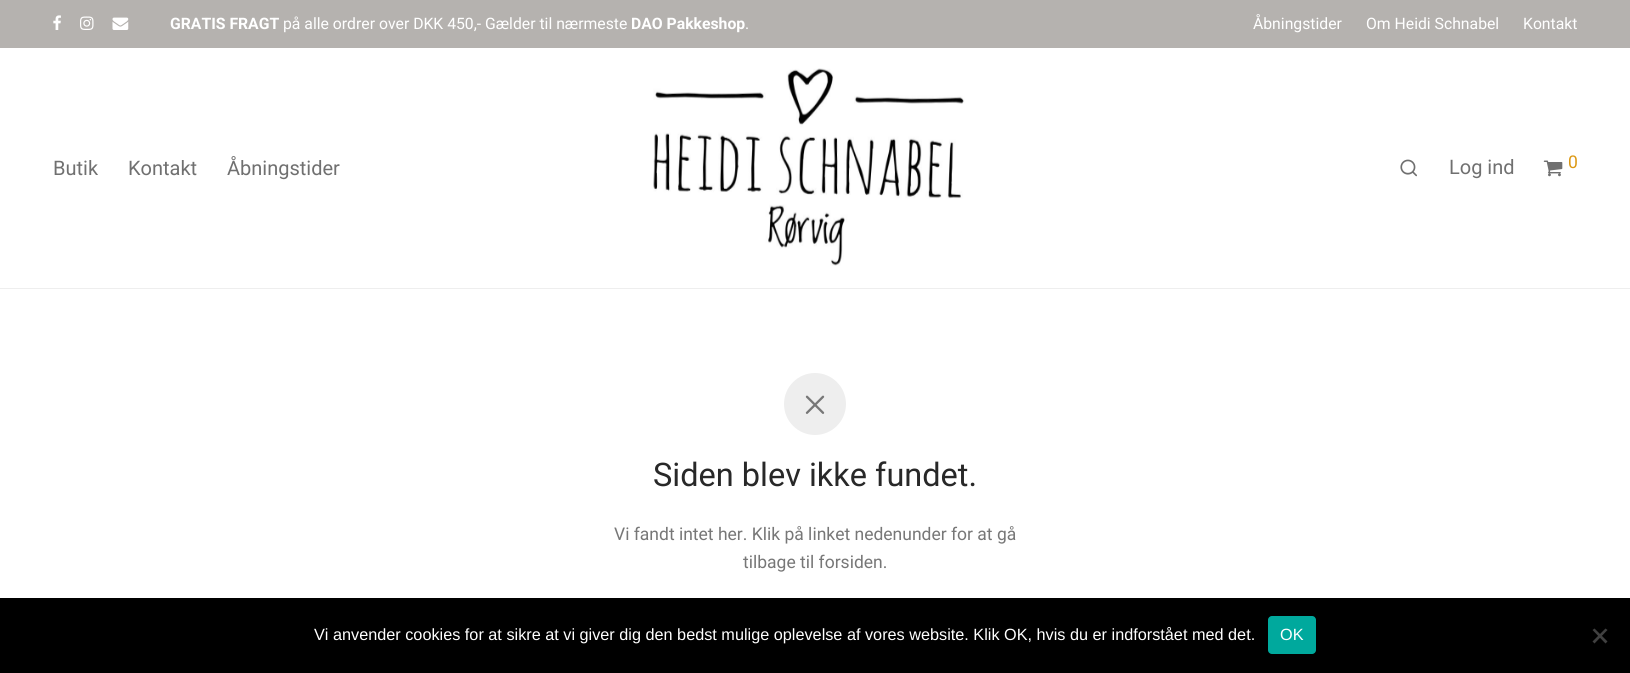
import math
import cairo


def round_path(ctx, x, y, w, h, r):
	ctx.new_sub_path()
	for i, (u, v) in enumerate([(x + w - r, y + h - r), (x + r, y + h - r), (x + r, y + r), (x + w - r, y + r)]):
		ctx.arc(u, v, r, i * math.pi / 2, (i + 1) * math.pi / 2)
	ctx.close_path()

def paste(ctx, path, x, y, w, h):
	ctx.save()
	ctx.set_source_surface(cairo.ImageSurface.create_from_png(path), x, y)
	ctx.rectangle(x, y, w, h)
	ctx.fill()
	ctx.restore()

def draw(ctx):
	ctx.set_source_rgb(1, 1, 1)
	ctx.paint()
	ctx.set_source_rgb(0.71, 0.698, 0.686)
	ctx.rectangle(0, 0, 1630, 48)
	ctx.fill()
	paste(ctx, 'media/1.png', 53, 15, 8, 15)
	paste(ctx, 'media/2.png', 80, 16, 14, 14)
	paste(ctx, 'media/3.png', 112, 17, 17, 13)
	ctx.select_font_face('Roboto', cairo.FONT_SLANT_NORMAL, cairo.FONT_WEIGHT_BOLD)
	ctx.set_font_size(15.75)
	ctx.set_source_rgb(1, 1, 1)
	ctx.move_to(170, 29)
	ctx.show_text('GRATIS FRAGT')
	ctx.select_font_face('Roboto')
	ctx.move_to(283, 29)
	ctx.show_text('på alle ordrer over DKK 450,- Gælder til nærmeste')
	ctx.select_font_face('Roboto', cairo.FONT_SLANT_NORMAL, cairo.FONT_WEIGHT_BOLD)
	ctx.move_to(631, 29)
	ctx.show_text('DAO Pakkeshop')
	ctx.select_font_face('Roboto')
	for x, y, s in [
		(745, 29, '.'),
		(1253, 29, 'Åbningstider'),
		(1366, 29, 'Om Heidi Schnabel'),
		(1523, 29, 'Kontakt'),
	]:
		ctx.move_to(x, y)
		ctx.show_text(s)
	ctx.set_source_rgb(0.933, 0.933, 0.933)
	ctx.rectangle(0, 288, 1630, 1)
	ctx.fill()
	ctx.set_font_size(20)
	ctx.set_source_rgb(0.439, 0.439, 0.439)
	for x, y, s in [
		(53, 175, 'Butik'),
		(128, 175, 'Kontakt'),
		(227, 175, 'Åbningstider'),
	]:
		ctx.move_to(x, y)
		ctx.show_text(s)
	paste(ctx, 'media/4.png', 653, 68, 312, 198)
	paste(ctx, 'media/5.png', 1400, 159, 17, 18)
	ctx.move_to(1449, 174)
	ctx.show_text('Log ind')
	paste(ctx, 'media/6.png', 1543, 160, 20, 17)
	ctx.set_font_size(17.5)
	ctx.set_source_rgb(0.863, 0.596, 0.078)
	ctx.move_to(1568, 168)
	ctx.show_text('0')
	ctx.set_source_rgb(0.933, 0.933, 0.933)
	ctx.new_path()
	ctx.arc(815, 404, 31, 0, 2 * math.pi)
	ctx.fill()
	paste(ctx, 'media/7.png', 805, 395, 20, 19)
	ctx.set_font_size(32.5)
	ctx.set_source_rgb(0.157, 0.157, 0.157)
	ctx.move_to(653, 486)
	ctx.show_text('Siden blev ikke fundet.')
	ctx.set_font_size(17.5)
	ctx.set_source_rgb(0.467, 0.467, 0.467)
	ctx.move_to(614, 540)
	ctx.show_text('Vi fandt intet her. Klik på linket nedenunder for at gå')
	ctx.move_to(743, 568)
	ctx.show_text('tilbage til forsiden.')
	ctx.set_source_rgb(0, 0, 0)
	ctx.rectangle(0, 598, 1630, 75)
	ctx.fill()
	ctx.select_font_face('Liberation Sans')
	ctx.set_font_size(16.25)
	ctx.set_source_rgb(1, 1, 1)
	ctx.move_to(314, 640)
	ctx.show_text('Vi anvender cookies for at sikre at vi giver dig den bedst mulige oplevelse af vores website. Klik OK, hvis du er indforstået med det.')
	ctx.set_source_rgb(0, 0.663, 0.616)
	round_path(ctx, 1268, 616, 48, 38, 4)
	ctx.fill()
	ctx.set_source_rgb(1, 1, 1)
	ctx.move_to(1280, 640)
	ctx.show_text('OK')
	ctx.set_source_rgb(0.251, 0.251, 0.251)
	ctx.new_path()
	ctx.move_to(1605.5, 628.5)
	ctx.line_to(1607.5, 630)
	ctx.line_to(1594.5, 643.5)
	ctx.line_to(1592.5, 641.5)
	ctx.close_path()
	ctx.fill()
	ctx.new_path()
	ctx.move_to(1592.5, 630)
	ctx.line_to(1594.5, 628.5)
	ctx.line_to(1607.5, 641.5)
	ctx.line_to(1605.5, 643.5)
	ctx.close_path()
	ctx.fill()


surface = cairo.ImageSurface(cairo.FORMAT_RGB24, 1630, 673)
ctx = cairo.Context(surface)
options = cairo.FontOptions()
options.set_hint_metrics(cairo.HINT_METRICS_OFF)
options.set_hint_style(cairo.HINT_STYLE_NONE)
ctx.set_font_options(options)
ctx.set_miter_limit(4)
draw(ctx)
surface.write_to_png('image.png')
